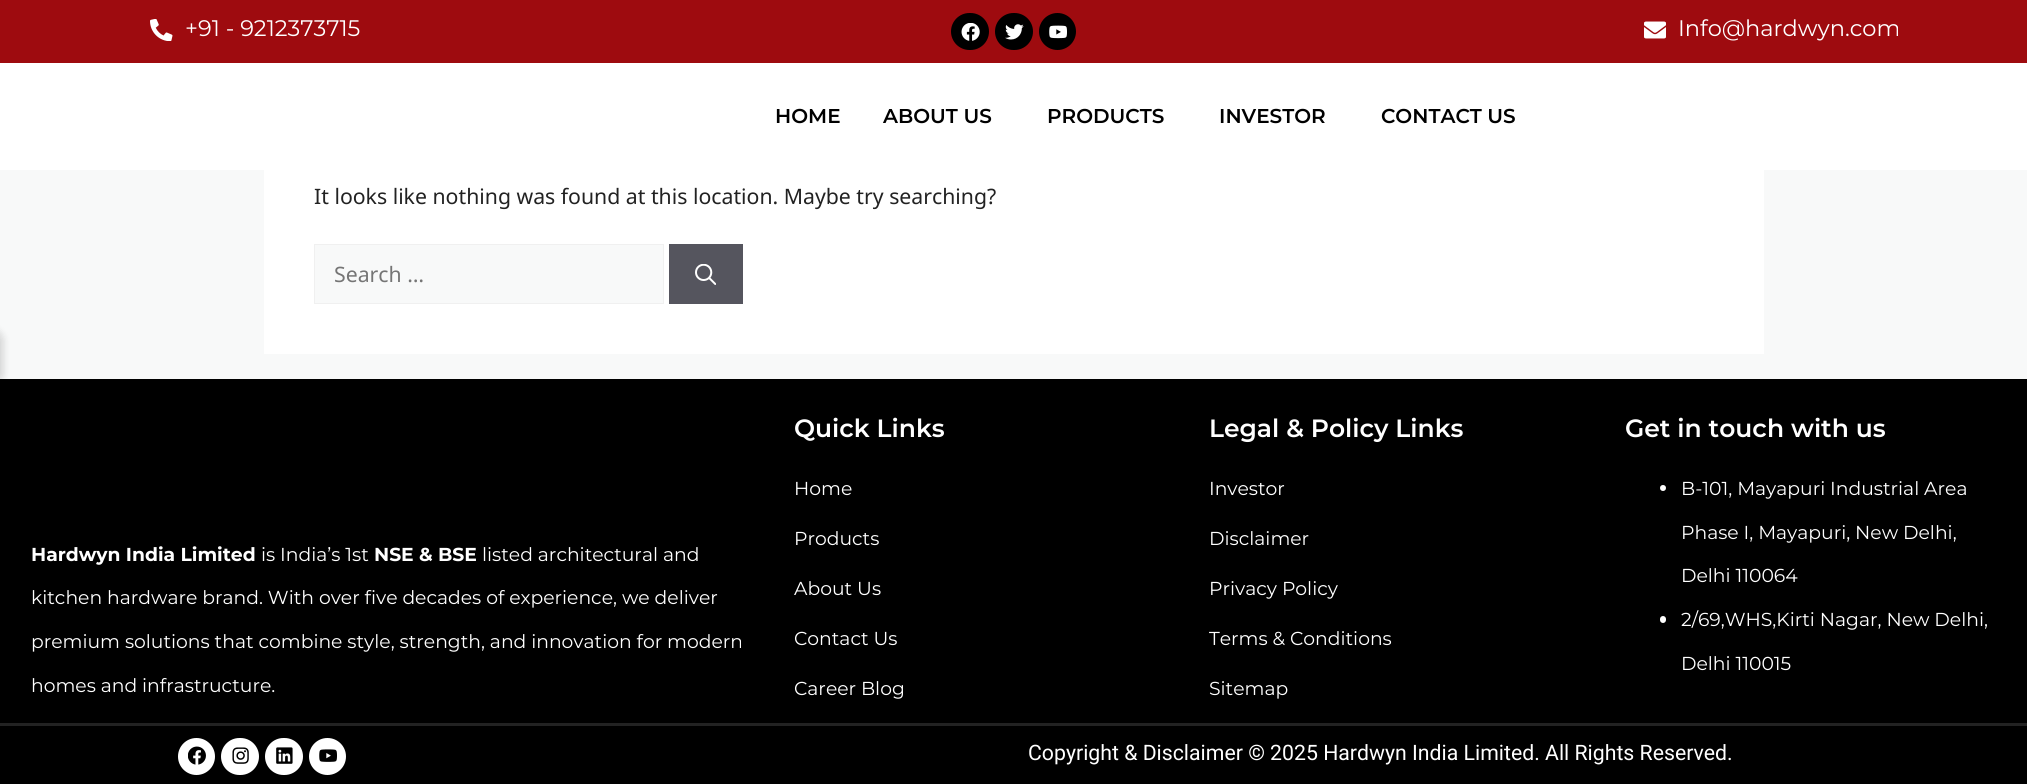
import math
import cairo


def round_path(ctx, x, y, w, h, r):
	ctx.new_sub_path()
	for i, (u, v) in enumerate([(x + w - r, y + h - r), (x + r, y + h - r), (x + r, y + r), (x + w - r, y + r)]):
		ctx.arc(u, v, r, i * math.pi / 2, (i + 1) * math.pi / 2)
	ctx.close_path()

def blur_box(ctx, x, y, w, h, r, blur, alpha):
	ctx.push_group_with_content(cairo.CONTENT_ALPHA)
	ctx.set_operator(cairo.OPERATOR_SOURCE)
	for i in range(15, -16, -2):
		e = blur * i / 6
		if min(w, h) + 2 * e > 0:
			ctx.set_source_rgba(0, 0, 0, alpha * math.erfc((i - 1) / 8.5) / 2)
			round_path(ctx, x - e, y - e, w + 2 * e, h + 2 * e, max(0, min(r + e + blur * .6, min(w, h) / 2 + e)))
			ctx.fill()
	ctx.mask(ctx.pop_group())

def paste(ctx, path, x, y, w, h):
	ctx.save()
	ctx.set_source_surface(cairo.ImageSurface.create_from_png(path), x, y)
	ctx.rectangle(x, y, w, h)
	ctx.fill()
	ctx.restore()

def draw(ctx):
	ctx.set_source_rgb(0.969, 0.973, 0.976)
	ctx.paint()
	ctx.set_source_rgb(1, 1, 1)
	ctx.rectangle(0, 63, 2027, 107)
	ctx.fill()
	ctx.set_source_rgb(0.62, 0.043, 0.059)
	ctx.rectangle(0, 0, 2027, 63)
	ctx.fill()
	paste(ctx, 'media/1.png', 150, 19, 23, 22)
	ctx.select_font_face('Montserrat')
	ctx.set_font_size(22.5)
	ctx.set_source_rgb(1, 1, 1)
	ctx.move_to(185, 36)
	ctx.show_text('+91 - 9212373715')
	ctx.set_source_rgb(0, 0, 0)
	round_path(ctx, 951, 13, 38, 37, 18.5)
	ctx.fill()
	paste(ctx, 'media/2.png', 961, 23, 19, 18)
	round_path(ctx, 995, 13, 38, 37, 18.5)
	ctx.fill()
	paste(ctx, 'media/3.png', 1005, 24, 19, 16)
	ctx.arc(1057.5, 31.5, 18.5, 0, 2 * math.pi)
	ctx.fill()
	paste(ctx, 'media/4.png', 1049, 25, 18, 14)
	paste(ctx, 'media/5.png', 1644, 21, 22, 18)
	ctx.set_source_rgb(1, 1, 1)
	ctx.move_to(1678, 36)
	ctx.show_text('Info@hardwyn.com')
	ctx.select_font_face('Montserrat SemiBold')
	ctx.set_font_size(20)
	ctx.set_source_rgb(0, 0, 0)
	for x, y, s in [
		(775, 123, 'HOME'),
		(883, 123, 'ABOUT US'),
		(1047, 123, 'PRODUCTS'),
		(1219, 123, 'INVESTOR'),
		(1381, 123, 'CONTACT US'),
	]:
		ctx.move_to(x, y)
		ctx.show_text(s)
	ctx.set_source_rgb(1, 1, 1)
	ctx.rectangle(264, 170, 1500, 184)
	ctx.fill()
	ctx.select_font_face('Noto Sans')
	ctx.set_font_size(21.25)
	ctx.set_source_rgb(0.133, 0.133, 0.133)
	ctx.move_to(314, 204)
	ctx.show_text('It looks like nothing was found at this location. Maybe try searching?')
	ctx.set_source_rgb(0.969, 0.973, 0.976)
	ctx.rectangle(314.5, 244.5, 349, 59)
	ctx.fill_preserve()
	ctx.set_source_rgb(0.941, 0.941, 0.941)
	ctx.set_line_width(1)
	ctx.stroke()
	ctx.set_source_rgb(0.459, 0.459, 0.459)
	ctx.move_to(334, 282)
	ctx.show_text('Search …')
	ctx.set_source_rgb(0.333, 0.333, 0.369)
	ctx.rectangle(669, 244, 74, 60)
	ctx.fill()
	paste(ctx, 'media/6.png', 695, 264, 21, 21)
	ctx.set_source_rgb(0, 0, 0)
	ctx.rectangle(0, 379, 2027, 344)
	ctx.fill()
	ctx.set_source_rgb(0, 0, 0)
	blur_box(ctx, -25, 329, 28, 56, 13, 4, 0.16)
	ctx.select_font_face('Montserrat', cairo.FONT_SLANT_NORMAL, cairo.FONT_WEIGHT_BOLD)
	ctx.set_font_size(18.75)
	ctx.set_source_rgb(1, 1, 1)
	ctx.move_to(31, 561)
	ctx.show_text('Hardwyn India Limited')
	ctx.select_font_face('Montserrat')
	ctx.move_to(261, 561)
	ctx.show_text('is India’s 1st')
	ctx.select_font_face('Montserrat', cairo.FONT_SLANT_NORMAL, cairo.FONT_WEIGHT_BOLD)
	ctx.move_to(374, 561)
	ctx.show_text('NSE & BSE')
	ctx.select_font_face('Montserrat')
	for x, y, s in [
		(482, 561, 'listed architectural and'),
		(31, 604, 'kitchen hardware brand. With over five decades of experience, we deliver'),
		(31, 648, 'premium solutions that combine style, strength, and innovation for modern'),
		(31, 692, 'homes and infrastructure.'),
	]:
		ctx.move_to(x, y)
		ctx.show_text(s)
	ctx.select_font_face('Montserrat SemiBold')
	ctx.set_font_size(25)
	ctx.move_to(794, 437)
	ctx.show_text('Quick Links')
	ctx.select_font_face('Montserrat')
	ctx.set_font_size(18.75)
	for x, y, s in [
		(794, 495, 'Home'),
		(794, 545, 'Products'),
		(794, 595, 'About Us'),
		(794, 645, 'Contact Us'),
		(794, 695, 'Career Blog'),
	]:
		ctx.move_to(x, y)
		ctx.show_text(s)
	ctx.select_font_face('Montserrat SemiBold')
	ctx.set_font_size(25)
	ctx.move_to(1209, 437)
	ctx.show_text('Legal & Policy Links')
	ctx.select_font_face('Montserrat')
	ctx.set_font_size(18.75)
	for x, y, s in [
		(1209, 495, 'Investor'),
		(1209, 545, 'Disclaimer'),
		(1209, 595, 'Privacy Policy'),
		(1209, 645, 'Terms & Conditions'),
		(1209, 695, 'Sitemap'),
	]:
		ctx.move_to(x, y)
		ctx.show_text(s)
	ctx.select_font_face('Montserrat SemiBold')
	ctx.set_font_size(25)
	ctx.move_to(1625, 437)
	ctx.show_text('Get in touch with us')
	ctx.new_path()
	ctx.arc(1663, 488, 3, 0, 2 * math.pi)
	ctx.fill()
	ctx.select_font_face('Montserrat')
	ctx.set_font_size(18.75)
	for x, y, s in [
		(1681, 495, 'B-101, Mayapuri Industrial Area'),
		(1681, 539, 'Phase I, Mayapuri, New Delhi,'),
		(1681, 582, 'Delhi 110064'),
	]:
		ctx.move_to(x, y)
		ctx.show_text(s)
	round_path(ctx, 1660, 616, 6, 7, 3)
	ctx.fill()
	ctx.move_to(1681, 626)
	ctx.show_text('2/69,WHS,Kirti Nagar, New Delhi,')
	ctx.move_to(1681, 670)
	ctx.show_text('Delhi 110015')
	ctx.set_source_rgb(0, 0, 0)
	ctx.rectangle(0, 726, 2027, 58)
	ctx.fill()
	ctx.set_source_rgb(0.133, 0.133, 0.133)
	ctx.rectangle(0, 723, 2027, 3)
	ctx.fill()
	ctx.set_source_rgb(1, 1, 1)
	ctx.arc(196.5, 756.5, 18.5, 0, 2 * math.pi)
	ctx.fill()
	paste(ctx, 'media/7.png', 188, 746, 18, 19)
	round_path(ctx, 221, 738, 38, 37, 18.5)
	ctx.fill()
	paste(ctx, 'media/8.png', 232, 747, 17, 17)
	round_path(ctx, 265, 738, 38, 37, 18.5)
	ctx.fill()
	paste(ctx, 'media/9.png', 276, 747, 17, 17)
	ctx.arc(327.5, 756.5, 18.5, 0, 2 * math.pi)
	ctx.fill()
	paste(ctx, 'media/10.png', 319, 749, 18, 13)
	ctx.select_font_face('Roboto')
	ctx.set_font_size(21.25)
	ctx.move_to(1028, 760)
	ctx.show_text('Copyright & Disclaimer © 2025 Hardwyn India Limited. All Rights Reserved.')


surface = cairo.ImageSurface(cairo.FORMAT_RGB24, 2027, 784)
ctx = cairo.Context(surface)
options = cairo.FontOptions()
options.set_hint_metrics(cairo.HINT_METRICS_OFF)
options.set_hint_style(cairo.HINT_STYLE_NONE)
ctx.set_font_options(options)
ctx.set_miter_limit(4)
draw(ctx)
surface.write_to_png('image.png')
